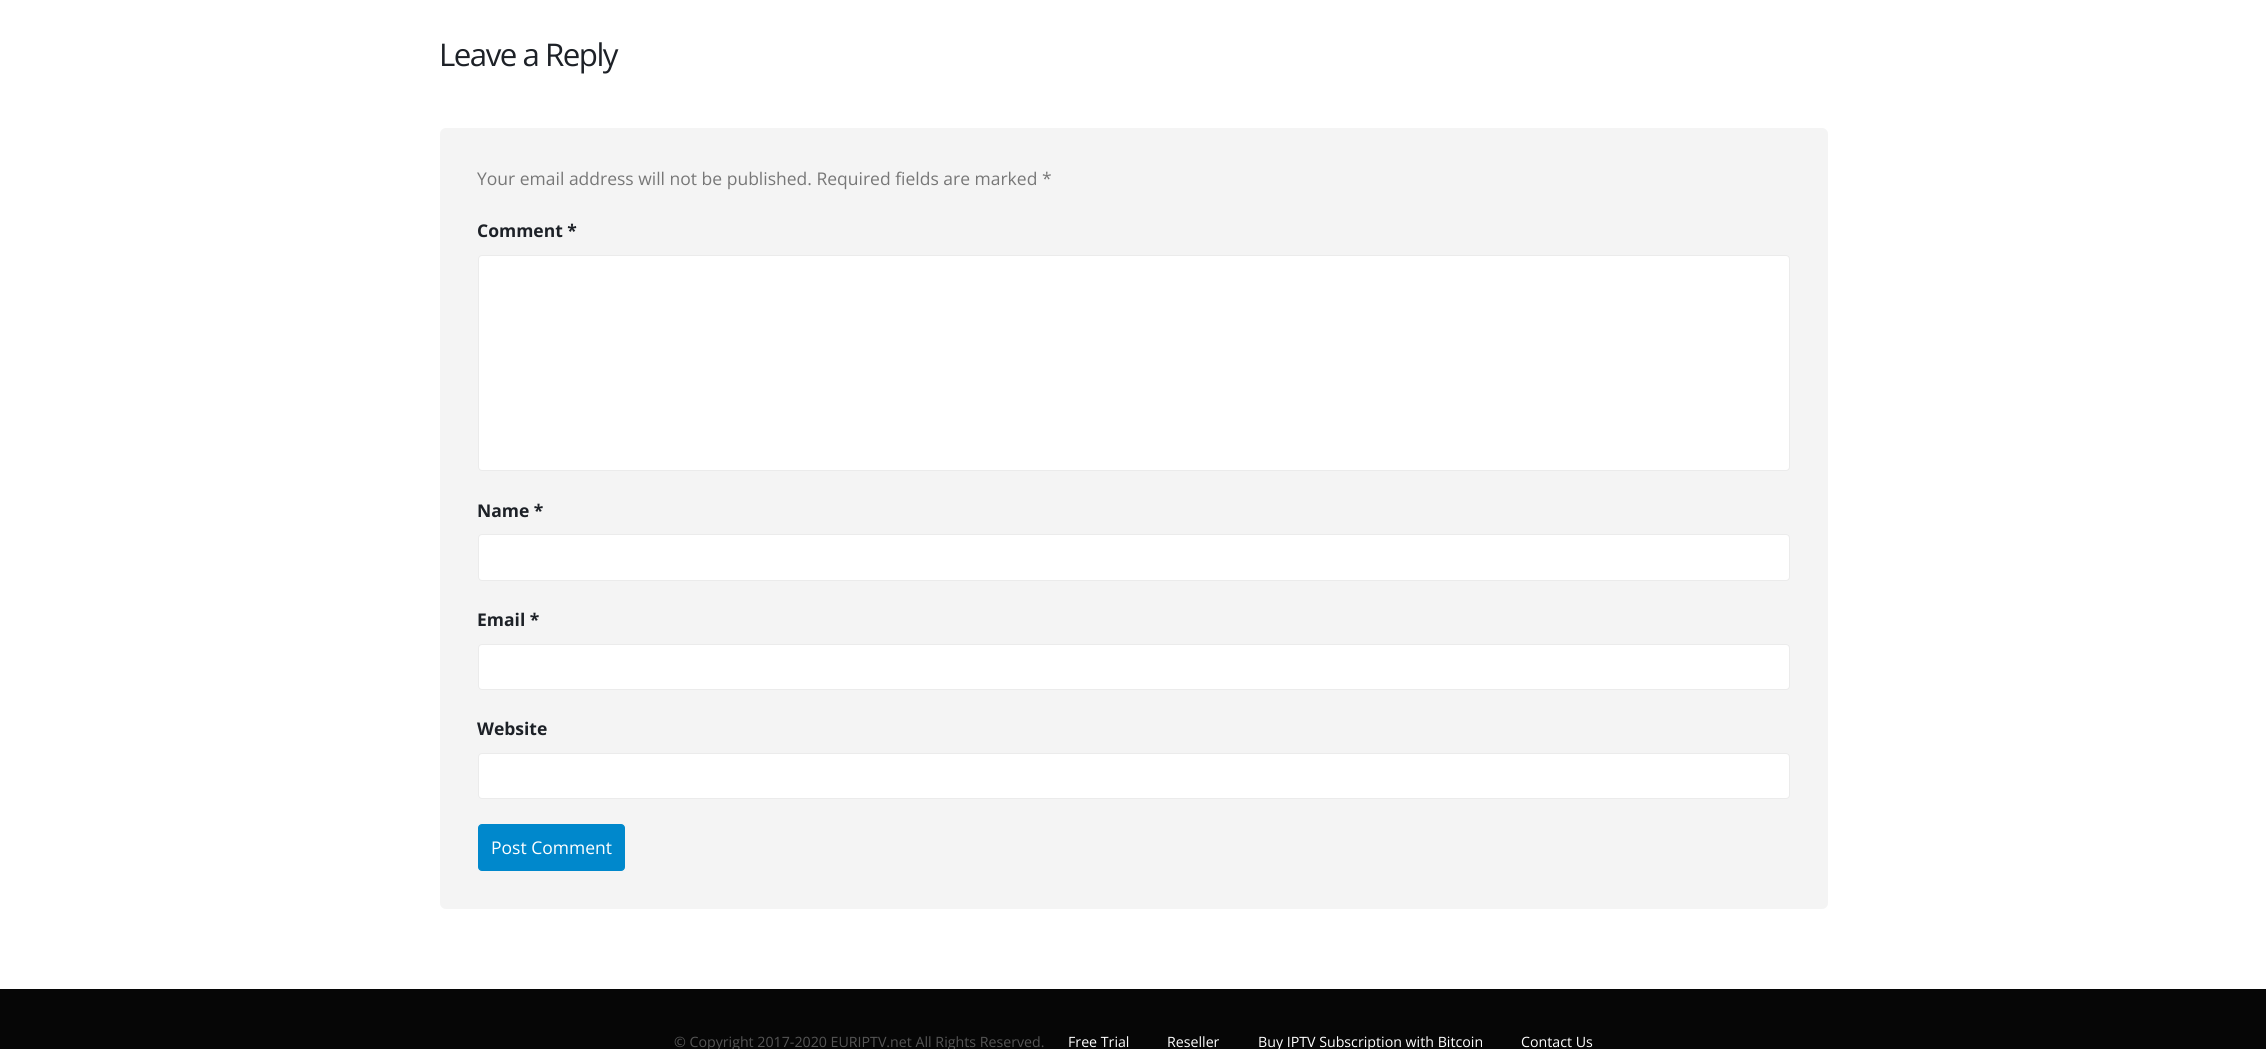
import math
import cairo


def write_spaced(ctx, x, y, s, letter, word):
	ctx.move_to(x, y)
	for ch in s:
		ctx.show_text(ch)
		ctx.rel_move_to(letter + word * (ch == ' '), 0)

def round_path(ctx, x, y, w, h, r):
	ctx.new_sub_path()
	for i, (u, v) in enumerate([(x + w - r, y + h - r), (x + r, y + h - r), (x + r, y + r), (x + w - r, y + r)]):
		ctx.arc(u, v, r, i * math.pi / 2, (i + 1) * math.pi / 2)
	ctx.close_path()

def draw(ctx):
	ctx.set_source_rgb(1, 1, 1)
	ctx.paint()
	ctx.select_font_face('Open Sans')
	ctx.set_font_size(31.25)
	ctx.set_source_rgb(0.114, 0.129, 0.153)
	write_spaced(ctx, 439, 66, 'Leave a Reply', -1.5, 0)
	ctx.set_source_rgb(0.957, 0.957, 0.957)
	round_path(ctx, 440, 128, 1388, 781, 6)
	ctx.fill()
	ctx.set_font_size(17.5)
	ctx.set_source_rgb(0.467, 0.467, 0.467)
	ctx.move_to(477, 185)
	ctx.show_text('Your email address will not be published. Required fields are marked *')
	ctx.select_font_face('Open Sans', cairo.FONT_SLANT_NORMAL, cairo.FONT_WEIGHT_BOLD)
	ctx.set_source_rgb(0.114, 0.129, 0.153)
	ctx.move_to(477, 237)
	ctx.show_text('Comment *')
	ctx.set_source_rgb(1, 1, 1)
	round_path(ctx, 478, 255, 1312, 216, 4)
	ctx.fill()
	round_path(ctx, 478.5, 255.5, 1311, 215, 3.5)
	ctx.set_source_rgba(0, 0, 0, 0.08)
	ctx.set_line_width(1)
	ctx.stroke()
	ctx.set_source_rgb(0.114, 0.129, 0.153)
	ctx.move_to(477, 517)
	ctx.show_text('Name *')
	ctx.set_source_rgb(1, 1, 1)
	round_path(ctx, 478, 534, 1312, 47, 4)
	ctx.fill()
	round_path(ctx, 478.5, 534.5, 1311, 46, 3.5)
	ctx.set_source_rgba(0, 0, 0, 0.08)
	ctx.stroke()
	ctx.set_source_rgb(0.114, 0.129, 0.153)
	ctx.move_to(477, 626)
	ctx.show_text('Email *')
	ctx.set_source_rgb(1, 1, 1)
	round_path(ctx, 478, 644, 1312, 46, 4)
	ctx.fill()
	round_path(ctx, 478.5, 644.5, 1311, 45, 3.5)
	ctx.set_source_rgba(0, 0, 0, 0.08)
	ctx.stroke()
	ctx.set_source_rgb(0.114, 0.129, 0.153)
	ctx.move_to(477, 735)
	ctx.show_text('Website')
	ctx.set_source_rgb(1, 1, 1)
	round_path(ctx, 478, 753, 1312, 46, 4)
	ctx.fill()
	round_path(ctx, 478.5, 753.5, 1311, 45, 3.5)
	ctx.set_source_rgba(0, 0, 0, 0.08)
	ctx.stroke()
	ctx.set_source_rgb(0, 0.533, 0.8)
	round_path(ctx, 478.5, 824.5, 146, 46, 3.5)
	ctx.fill_preserve()
	ctx.stroke()
	ctx.select_font_face('Open Sans')
	ctx.set_source_rgb(1, 1, 1)
	ctx.move_to(491, 854)
	ctx.show_text('Post Comment')
	ctx.set_source_rgb(0.024, 0.024, 0.024)
	ctx.rectangle(0, 989, 2266, 60)
	ctx.fill()
	ctx.set_font_size(14.2)
	ctx.set_source_rgb(0.333, 0.333, 0.333)
	ctx.move_to(674, 1047)
	ctx.show_text('© Copyright 2017-2020 EURIPTV.net All Rights Reserved.')
	ctx.set_source_rgb(1, 1, 1)
	for x, y, s in [
		(1068, 1047, 'Free Trial'),
		(1167, 1047, 'Reseller'),
		(1258, 1047, 'Buy IPTV Subscription with Bitcoin'),
		(1521, 1047, 'Contact Us'),
	]:
		ctx.move_to(x, y)
		ctx.show_text(s)


surface = cairo.ImageSurface(cairo.FORMAT_RGB24, 2266, 1049)
ctx = cairo.Context(surface)
options = cairo.FontOptions()
options.set_hint_metrics(cairo.HINT_METRICS_OFF)
options.set_hint_style(cairo.HINT_STYLE_NONE)
ctx.set_font_options(options)
ctx.set_miter_limit(4)
draw(ctx)
surface.write_to_png('image.png')
